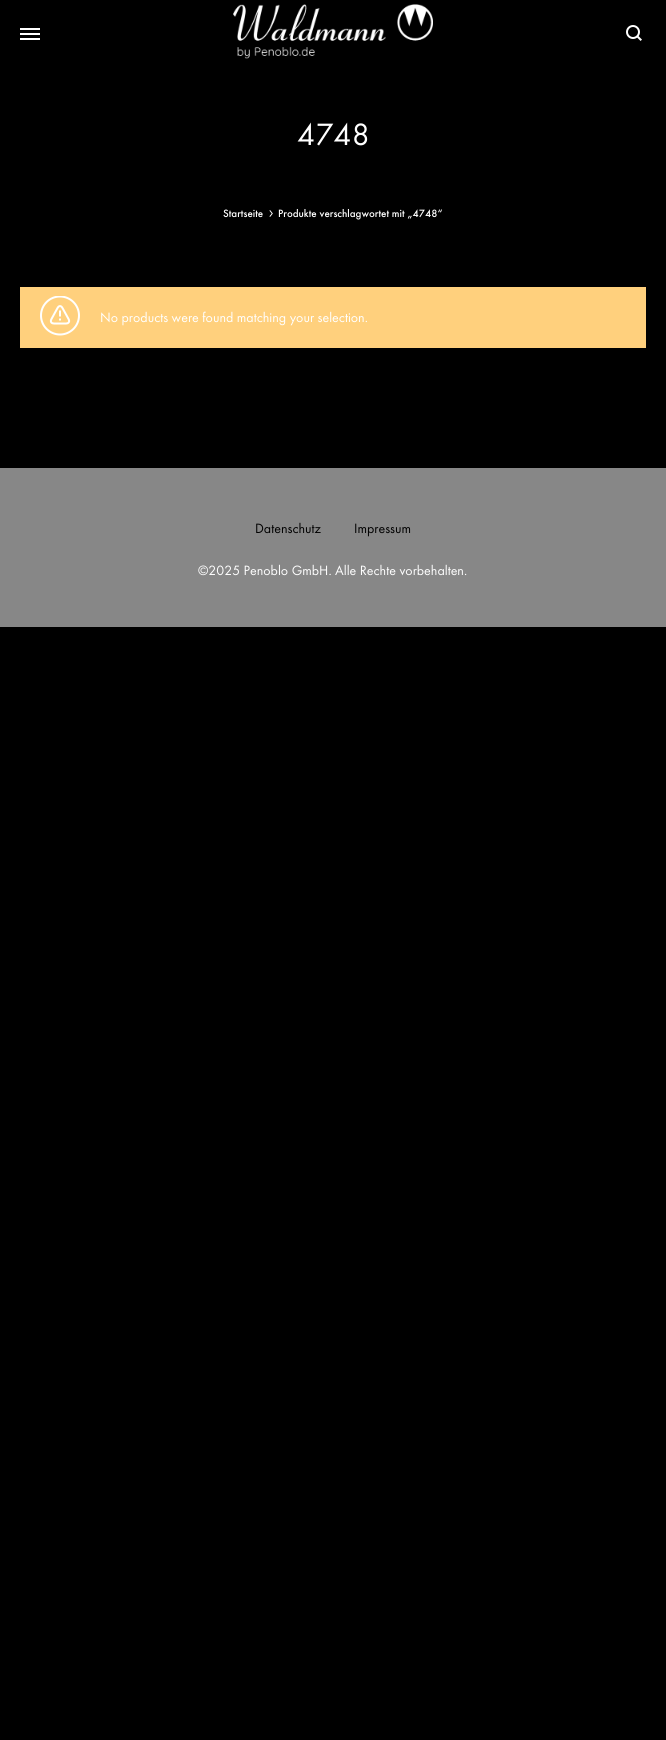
import math
import cairo


def paste(ctx, path, x, y, w, h):
	ctx.save()
	ctx.set_source_surface(cairo.ImageSurface.create_from_png(path), x, y)
	ctx.rectangle(x, y, w, h)
	ctx.fill()
	ctx.restore()

def draw(ctx):
	ctx.set_source_rgb(0, 0, 0)
	ctx.paint()
	ctx.set_source_rgb(1, 1, 1)
	ctx.rectangle(20, 33, 20, 2)
	ctx.rectangle(20, 28, 20, 2)
	ctx.rectangle(20, 38, 20, 2)
	ctx.fill()
	paste(ctx, 'media/1.png', 233, 4, 200, 55)
	paste(ctx, 'media/2.png', 626, 25, 16, 16)
	ctx.select_font_face('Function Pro')
	ctx.set_font_size(32)
	ctx.move_to(297, 145)
	ctx.show_text('4748')
	ctx.select_font_face('Function Pro Medium')
	ctx.set_font_size(11)
	ctx.move_to(223, 217)
	ctx.show_text('Startseite')
	paste(ctx, 'media/3.png', 269, 210, 4, 7)
	ctx.move_to(278, 217)
	ctx.show_text('Produkte verschlagwortet mit „4748“')
	ctx.set_source_rgb(1, 0.816, 0.49)
	ctx.rectangle(20, 287, 626, 61)
	ctx.fill()
	paste(ctx, 'media/4.png', 40, 296, 40, 40)
	ctx.select_font_face('Function Pro')
	ctx.set_font_size(14)
	ctx.set_source_rgb(1, 1, 1)
	ctx.move_to(100, 322)
	ctx.show_text('No products were found matching your selection.')
	ctx.set_source_rgb(0.529, 0.529, 0.529)
	ctx.rectangle(0, 468, 666, 159)
	ctx.fill()
	ctx.set_source_rgb(0, 0, 0)
	ctx.move_to(255, 533)
	ctx.show_text('Datenschutz')
	ctx.move_to(354, 533)
	ctx.show_text('Impressum')
	ctx.set_source_rgb(1, 1, 1)
	ctx.move_to(198, 575)
	ctx.show_text('©2025 Penoblo GmbH. Alle Rechte vorbehalten.')


surface = cairo.ImageSurface(cairo.FORMAT_RGB24, 666, 1740)
ctx = cairo.Context(surface)
options = cairo.FontOptions()
options.set_hint_metrics(cairo.HINT_METRICS_OFF)
options.set_hint_style(cairo.HINT_STYLE_NONE)
ctx.set_font_options(options)
ctx.set_miter_limit(4)
draw(ctx)
surface.write_to_png('image.png')
